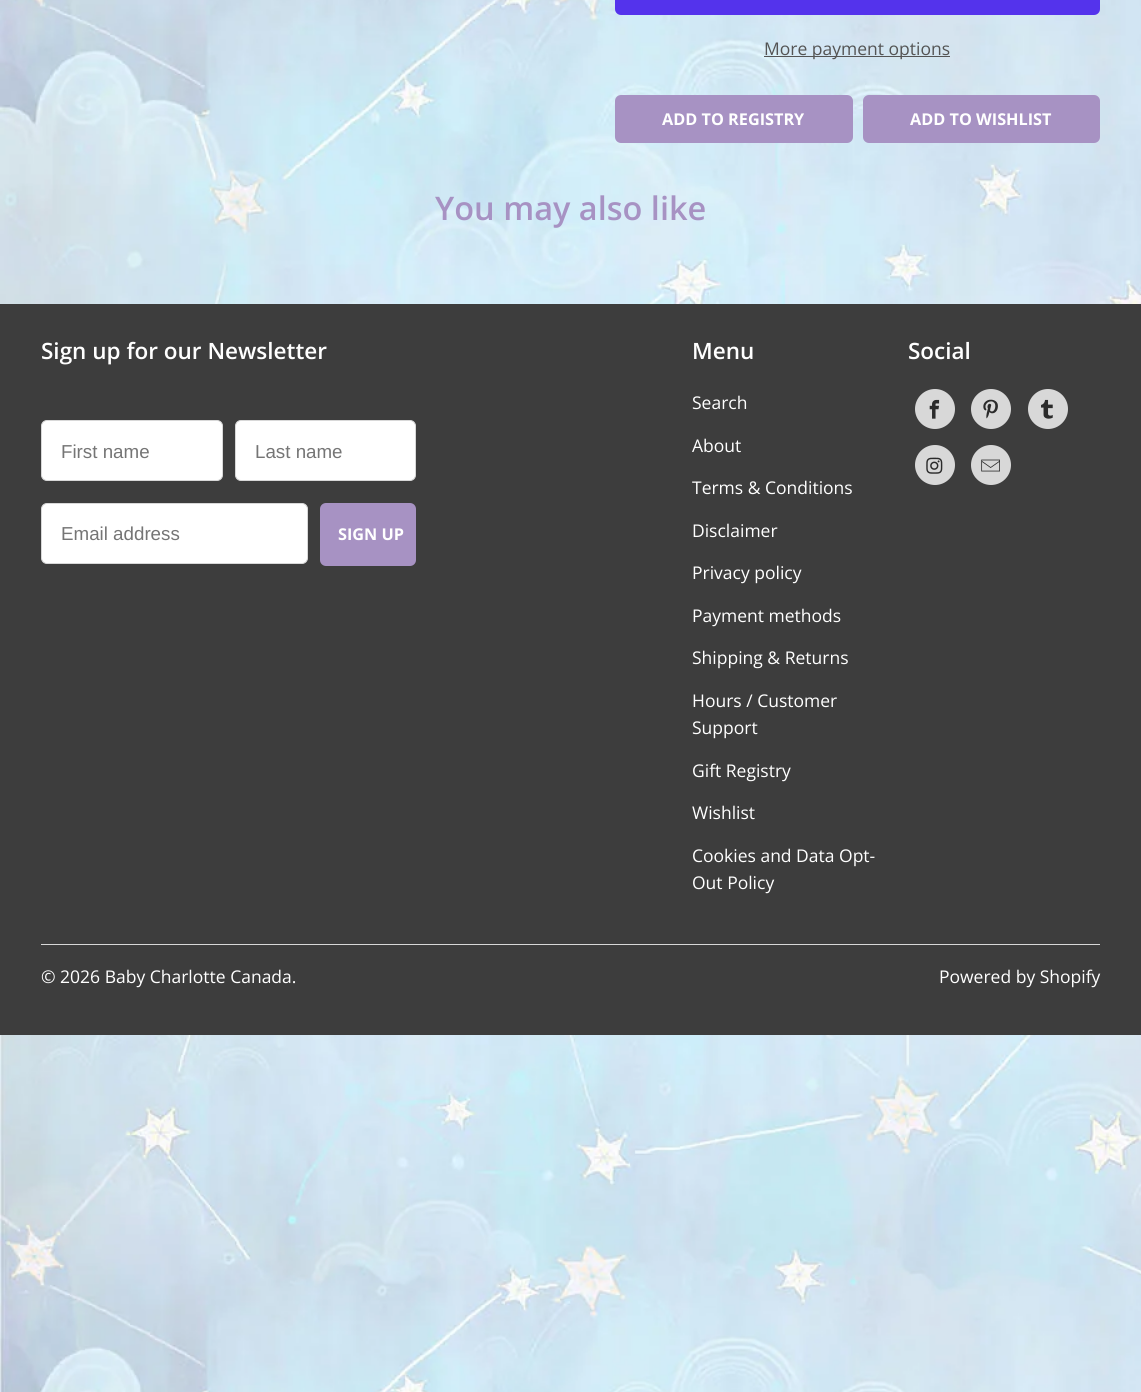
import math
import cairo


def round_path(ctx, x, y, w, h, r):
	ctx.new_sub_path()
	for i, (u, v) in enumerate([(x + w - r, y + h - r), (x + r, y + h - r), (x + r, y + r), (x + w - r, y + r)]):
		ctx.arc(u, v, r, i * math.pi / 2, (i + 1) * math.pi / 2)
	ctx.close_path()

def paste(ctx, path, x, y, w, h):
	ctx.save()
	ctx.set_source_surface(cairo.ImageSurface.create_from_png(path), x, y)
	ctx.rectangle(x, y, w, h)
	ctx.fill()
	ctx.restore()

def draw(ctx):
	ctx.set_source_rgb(1, 1, 1)
	ctx.paint()
	paste(ctx, 'media/1.png', 0, 0, 1141, 1392)
	ctx.set_source_rgb(0.329, 0.2, 0.922)
	round_path(ctx, 615, -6, 485, 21, 6)
	ctx.fill()
	ctx.set_source_rgb(0.329, 0.329, 0.329)
	ctx.rectangle(764, 56, 186, 1)
	ctx.fill()
	ctx.select_font_face('Open Sans')
	ctx.set_font_size(17.5)
	ctx.move_to(764, 55)
	ctx.show_text('More payment options')
	ctx.set_source_rgb(0.655, 0.573, 0.765)
	round_path(ctx, 615, 95, 238, 48, 6)
	ctx.fill()
	ctx.select_font_face('Open Sans', cairo.FONT_SLANT_NORMAL, cairo.FONT_WEIGHT_BOLD)
	ctx.set_font_size(16.25)
	ctx.set_source_rgb(1, 1, 1)
	ctx.move_to(662, 125)
	ctx.show_text('ADD TO REGISTRY')
	ctx.set_source_rgb(0.655, 0.573, 0.765)
	round_path(ctx, 863, 95, 237, 48, 6)
	ctx.fill()
	ctx.set_source_rgb(1, 1, 1)
	ctx.move_to(910, 125)
	ctx.show_text('ADD TO WISHLIST')
	ctx.select_font_face('Open Sans SemiBold')
	ctx.set_font_size(32.5)
	ctx.set_source_rgb(0.655, 0.573, 0.765)
	ctx.move_to(435, 220)
	ctx.show_text('You may also like')
	ctx.set_source_rgb(0.239, 0.239, 0.239)
	ctx.rectangle(0, 304, 1141, 731)
	ctx.fill()
	ctx.set_font_size(22.5)
	ctx.set_source_rgb(1, 1, 1)
	ctx.move_to(41, 359)
	ctx.show_text('Sign up for our Newsletter')
	round_path(ctx, 41.5, 420.5, 181, 60, 5.5)
	ctx.fill_preserve()
	ctx.set_source_rgb(0.847, 0.847, 0.847)
	ctx.set_line_width(1)
	ctx.stroke()
	ctx.select_font_face('Liberation Sans')
	ctx.set_font_size(18.75)
	ctx.set_source_rgb(0.459, 0.459, 0.459)
	ctx.move_to(61, 458)
	ctx.show_text('First name')
	ctx.set_source_rgb(1, 1, 1)
	round_path(ctx, 235.5, 420.5, 180, 60, 5.5)
	ctx.fill_preserve()
	ctx.set_source_rgb(0.847, 0.847, 0.847)
	ctx.stroke()
	ctx.set_source_rgb(0.459, 0.459, 0.459)
	ctx.move_to(255, 458)
	ctx.show_text('Last name')
	ctx.set_source_rgb(1, 1, 1)
	round_path(ctx, 41.5, 503.5, 266, 60, 5.5)
	ctx.fill_preserve()
	ctx.set_source_rgb(0.847, 0.847, 0.847)
	ctx.stroke()
	ctx.set_source_rgb(0.459, 0.459, 0.459)
	ctx.move_to(61, 540)
	ctx.show_text('Email address')
	ctx.set_source_rgb(0.655, 0.573, 0.765)
	round_path(ctx, 320, 503, 96, 63, 6)
	ctx.fill()
	ctx.select_font_face('Open Sans', cairo.FONT_SLANT_NORMAL, cairo.FONT_WEIGHT_BOLD)
	ctx.set_font_size(16.25)
	ctx.set_source_rgb(1, 1, 1)
	ctx.move_to(338, 540)
	ctx.show_text('SIGN UP')
	ctx.select_font_face('Open Sans SemiBold')
	ctx.set_font_size(22.5)
	ctx.move_to(692, 359)
	ctx.show_text('Menu')
	ctx.select_font_face('Open Sans')
	ctx.set_font_size(17.5)
	for x, y, s in [
		(692, 409, 'Search'),
		(692, 452, 'About'),
		(692, 494, 'Terms & Conditions'),
		(692, 537, 'Disclaimer'),
		(692, 579, 'Privacy policy'),
		(692, 622, 'Payment methods'),
		(692, 664, 'Shipping & Returns'),
		(692, 707, 'Hours / Customer'),
		(692, 734, 'Support'),
		(692, 777, 'Gift Registry'),
		(692, 819, 'Wishlist'),
		(692, 862, 'Cookies and Data Opt-'),
		(692, 889, 'Out Policy'),
	]:
		ctx.move_to(x, y)
		ctx.show_text(s)
	ctx.select_font_face('Open Sans SemiBold')
	ctx.set_font_size(22.5)
	ctx.move_to(908, 359)
	ctx.show_text('Social')
	ctx.set_source_rgb(0.847, 0.847, 0.847)
	ctx.new_path()
	ctx.arc(935, 409, 20, 0, 2 * math.pi)
	ctx.fill()
	paste(ctx, 'media/2.png', 929, 399, 11, 20)
	ctx.arc(991, 409, 20, 0, 2 * math.pi)
	ctx.fill()
	paste(ctx, 'media/3.png', 983, 399, 15, 20)
	ctx.arc(1048, 409, 20, 0, 2 * math.pi)
	ctx.fill()
	paste(ctx, 'media/4.png', 1041, 399, 12, 20)
	ctx.arc(935, 465, 20, 0, 2 * math.pi)
	ctx.fill()
	paste(ctx, 'media/5.png', 926, 457, 17, 17)
	ctx.arc(991, 465, 20, 0, 2 * math.pi)
	ctx.fill()
	paste(ctx, 'media/6.png', 981, 459, 19, 13)
	ctx.rectangle(41, 944, 1059, 1)
	ctx.fill()
	ctx.select_font_face('Open Sans')
	ctx.set_font_size(17.5)
	ctx.set_source_rgb(1, 1, 1)
	ctx.move_to(41, 983)
	ctx.show_text('© 2026 Baby Charlotte Canada.')
	ctx.move_to(939, 983)
	ctx.show_text('Powered by Shopify')


surface = cairo.ImageSurface(cairo.FORMAT_RGB24, 1141, 1392)
ctx = cairo.Context(surface)
options = cairo.FontOptions()
options.set_hint_metrics(cairo.HINT_METRICS_OFF)
options.set_hint_style(cairo.HINT_STYLE_NONE)
ctx.set_font_options(options)
ctx.set_miter_limit(4)
draw(ctx)
surface.write_to_png('image.png')
